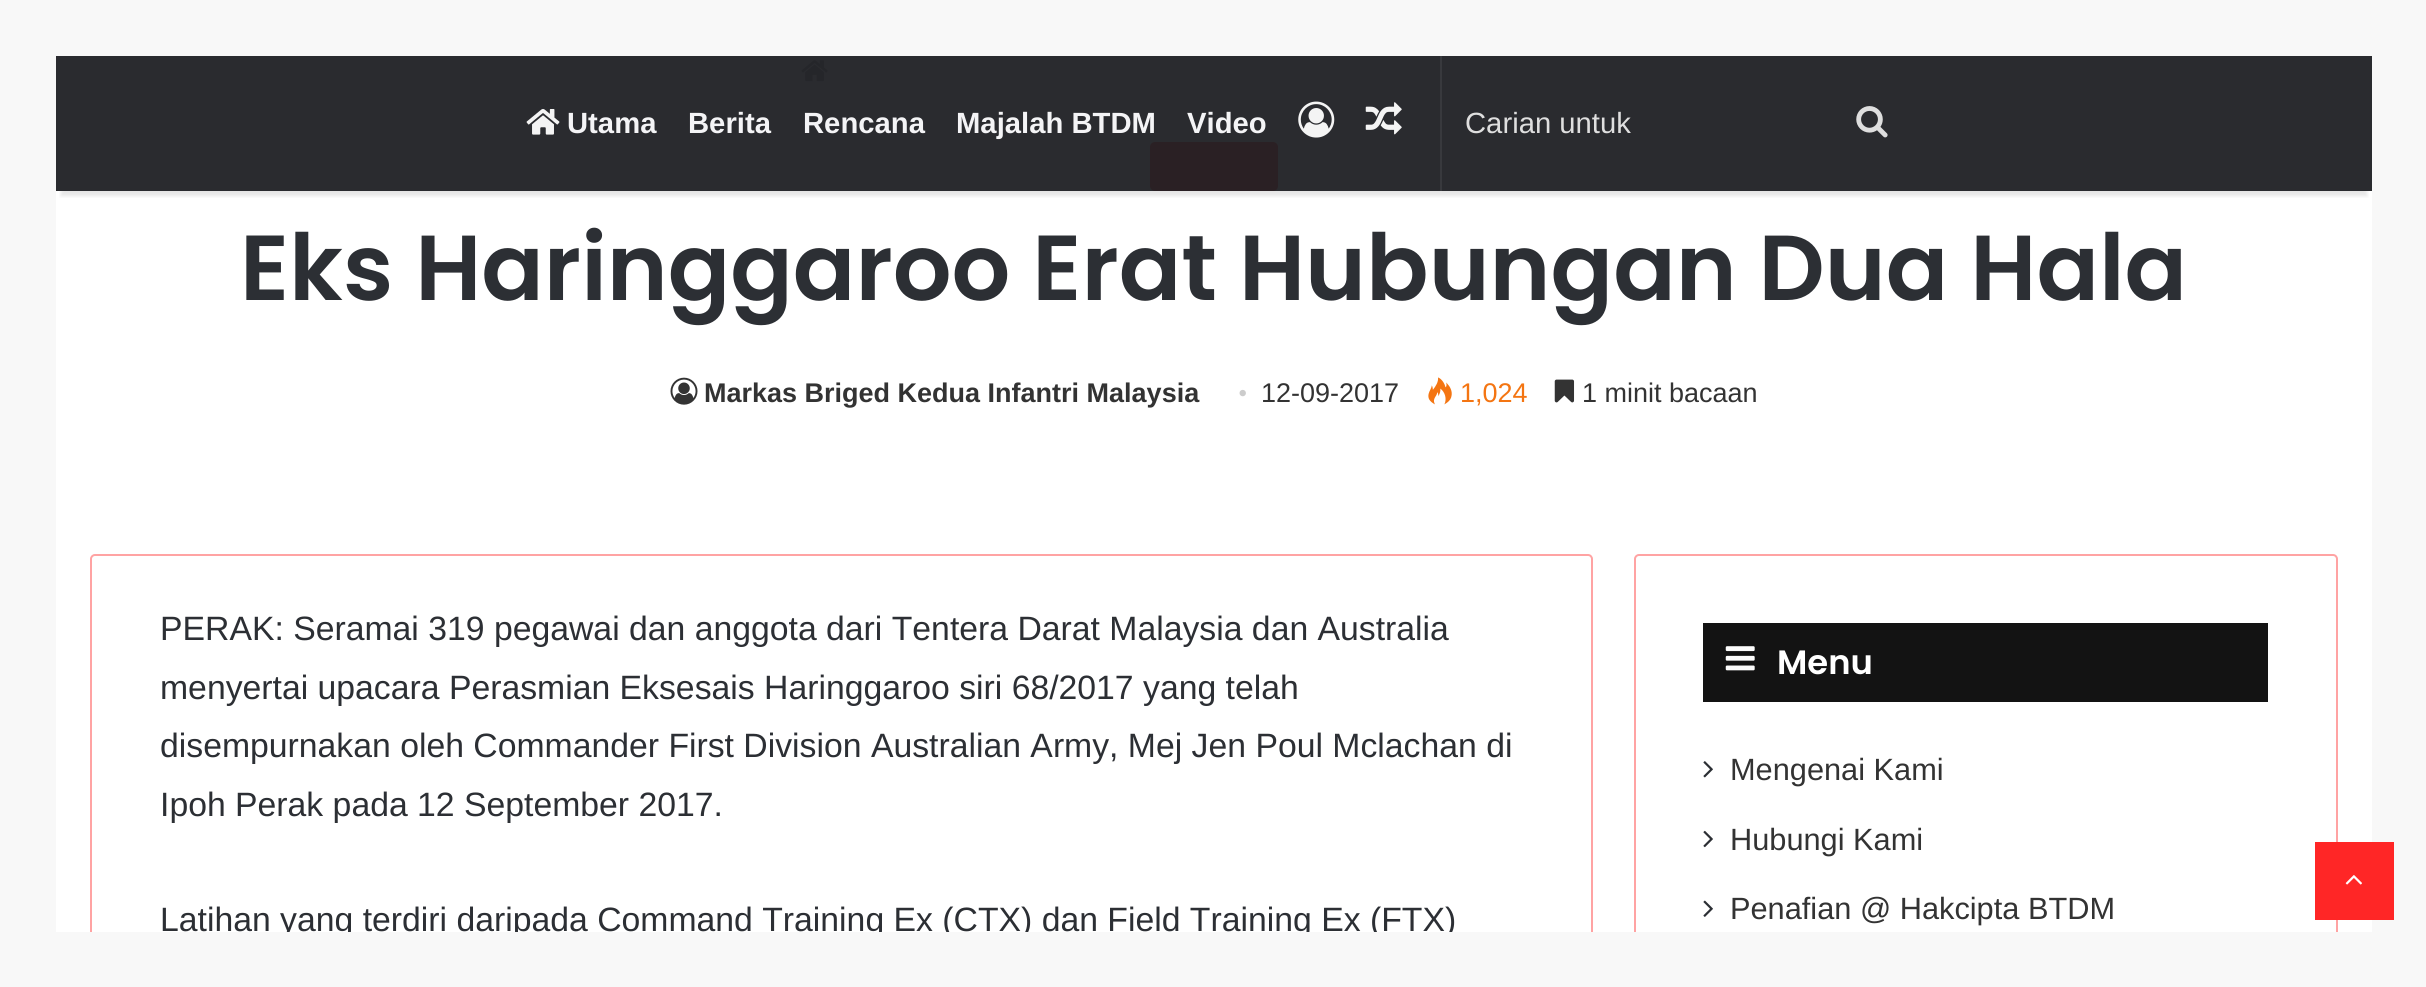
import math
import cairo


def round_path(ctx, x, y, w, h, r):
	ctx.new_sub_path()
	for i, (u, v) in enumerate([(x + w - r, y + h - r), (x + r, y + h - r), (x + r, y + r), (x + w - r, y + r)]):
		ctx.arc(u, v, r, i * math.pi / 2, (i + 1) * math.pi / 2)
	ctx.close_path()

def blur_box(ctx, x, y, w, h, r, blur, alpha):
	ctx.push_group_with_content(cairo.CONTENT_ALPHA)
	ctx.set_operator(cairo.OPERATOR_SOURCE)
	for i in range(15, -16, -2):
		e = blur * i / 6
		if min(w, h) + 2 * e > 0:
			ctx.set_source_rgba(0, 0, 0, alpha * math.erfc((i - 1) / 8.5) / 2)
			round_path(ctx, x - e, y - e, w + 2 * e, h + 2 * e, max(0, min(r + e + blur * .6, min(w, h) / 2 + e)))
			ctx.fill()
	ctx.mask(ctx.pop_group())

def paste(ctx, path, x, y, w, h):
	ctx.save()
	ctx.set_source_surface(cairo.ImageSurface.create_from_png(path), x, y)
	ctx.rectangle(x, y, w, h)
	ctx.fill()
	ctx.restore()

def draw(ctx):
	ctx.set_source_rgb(0.969, 0.969, 0.969)
	ctx.paint()
	ctx.set_source_rgb(1, 1, 1)
	ctx.rectangle(56, 191, 2316, 741)
	ctx.fill()
	ctx.set_source_rgb(0.165, 0.169, 0.184)
	ctx.rectangle(56, 56, 2316, 135)
	ctx.fill()
	paste(ctx, 'media/5.png', 801, 60, 27, 22)
	ctx.set_source_rgb(0.165, 0.125, 0.141)
	round_path(ctx, 1150, 142, 128, 49, 5)
	ctx.fill()
	ctx.save()
	ctx.rectangle(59, 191, 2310, 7)
	ctx.clip()
	ctx.set_source_rgb(0, 0, 0)
	blur_box(ctx, 61, 70, 2306, 126, 0, 2, 0.1)
	ctx.restore()
	paste(ctx, 'media/1.png', 526, 109, 34, 26)
	ctx.select_font_face('Liberation Sans', cairo.FONT_SLANT_NORMAL, cairo.FONT_WEIGHT_BOLD)
	ctx.set_font_size(29.25)
	ctx.set_source_rgb(0.957, 0.957, 0.961)
	for x, y, s in [
		(567, 133, 'Utama'),
		(688, 133, 'Berita'),
		(803, 133, 'Rencana'),
		(956, 133, 'Majalah BTDM'),
		(1187, 133, 'Video'),
	]:
		ctx.move_to(x, y)
		ctx.show_text(s)
	paste(ctx, 'media/2.png', 1298, 101, 37, 37)
	paste(ctx, 'media/3.png', 1365, 102, 37, 33)
	ctx.set_source_rgba(1, 1, 1, 0.07)
	ctx.rectangle(1440, 56, 2, 135)
	ctx.fill()
	ctx.select_font_face('Liberation Sans')
	ctx.set_source_rgb(0.875, 0.875, 0.875)
	ctx.move_to(1465, 133)
	ctx.show_text('Carian untuk')
	paste(ctx, 'media/4.png', 1856, 106, 32, 32)
	ctx.select_font_face('Poppins SemiBold')
	ctx.set_font_size(92.25)
	ctx.set_source_rgb(0.173, 0.184, 0.204)
	ctx.move_to(240, 300)
	ctx.show_text('Eks Haringgaroo Erat Hubungan Dua Hala')
	paste(ctx, 'media/6.png', 670, 377, 28, 28)
	ctx.select_font_face('Liberation Sans', cairo.FONT_SLANT_NORMAL, cairo.FONT_WEIGHT_BOLD)
	ctx.set_font_size(27)
	ctx.set_source_rgb(0.2, 0.2, 0.2)
	ctx.move_to(704, 402)
	ctx.show_text('Markas Briged Kedua Infantri Malaysia')
	ctx.select_font_face('Liberation Serif')
	ctx.set_source_rgb(0.8, 0.8, 0.8)
	ctx.move_to(1238, 402)
	ctx.show_text('•')
	ctx.select_font_face('Liberation Sans')
	ctx.set_source_rgb(0.2, 0.2, 0.2)
	ctx.move_to(1261, 402)
	ctx.show_text('12-09-2017')
	paste(ctx, 'media/7.png', 1428, 377, 24, 28)
	ctx.set_source_rgb(0.957, 0.459, 0.071)
	ctx.move_to(1460, 402)
	ctx.show_text('1,024')
	paste(ctx, 'media/8.png', 1554, 379, 21, 24)
	ctx.set_source_rgb(0.2, 0.2, 0.2)
	ctx.move_to(1582, 402)
	ctx.show_text('1 minit bacaan')
	round_path(ctx, 91, 555, 1501, 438, 4)
	ctx.set_source_rgb(1, 0.639, 0.639)
	ctx.stroke()
	ctx.set_font_size(33.75)
	ctx.set_source_rgb(0.173, 0.184, 0.204)
	for x, y, s in [
		(160, 640, 'PERAK: Seramai 319 pegawai dan anggota dari Tentera Darat Malaysia dan Australia'),
		(160, 699, 'menyertai upacara Perasmian Eksesais Haringgaroo siri 68/2017 yang telah'),
		(160, 757, 'disempurnakan oleh Commander First Division Australian Army, Mej Jen Poul Mclachan di'),
		(160, 816, 'Ipoh Perak pada 12 September 2017.'),
		(160, 931, 'Latihan yang terdiri daripada Command Training Ex (CTX) dan Field Training Ex (FTX)'),
	]:
		ctx.move_to(x, y)
		ctx.show_text(s)
	round_path(ctx, 1635, 555, 702, 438, 4)
	ctx.set_source_rgb(1, 0.639, 0.639)
	ctx.stroke()
	ctx.set_source_rgb(0.075, 0.075, 0.075)
	ctx.rectangle(1703, 623, 565, 79)
	ctx.fill()
	paste(ctx, 'media/9.png', 1725, 646, 30, 25)
	ctx.select_font_face('Poppins SemiBold')
	ctx.set_source_rgb(1, 1, 1)
	ctx.move_to(1777, 674)
	ctx.show_text('Menu')
	paste(ctx, 'media/10.png', 1703, 761, 10, 17)
	ctx.select_font_face('Liberation Sans')
	ctx.set_font_size(30.75)
	ctx.set_source_rgb(0.2, 0.2, 0.2)
	ctx.move_to(1730, 780)
	ctx.show_text('Mengenai Kami')
	paste(ctx, 'media/11.png', 1703, 830, 10, 18)
	ctx.move_to(1730, 850)
	ctx.show_text('Hubungi Kami')
	paste(ctx, 'media/12.png', 1703, 900, 10, 17)
	ctx.move_to(1730, 919)
	ctx.show_text('Penafian @ Hakcipta BTDM')
	ctx.set_source_rgb(1, 0.149, 0.149)
	ctx.rectangle(2315, 842, 79, 78)
	ctx.fill()
	paste(ctx, 'media/13.png', 2345, 875, 17, 10)
	ctx.set_source_rgb(0.969, 0.969, 0.969)
	ctx.rectangle(90, 932, 2248, 55)
	ctx.fill()


surface = cairo.ImageSurface(cairo.FORMAT_RGB24, 2426, 987)
ctx = cairo.Context(surface)
options = cairo.FontOptions()
options.set_hint_metrics(cairo.HINT_METRICS_OFF)
options.set_hint_style(cairo.HINT_STYLE_NONE)
ctx.set_font_options(options)
ctx.set_miter_limit(4)
draw(ctx)
surface.write_to_png('image.png')
